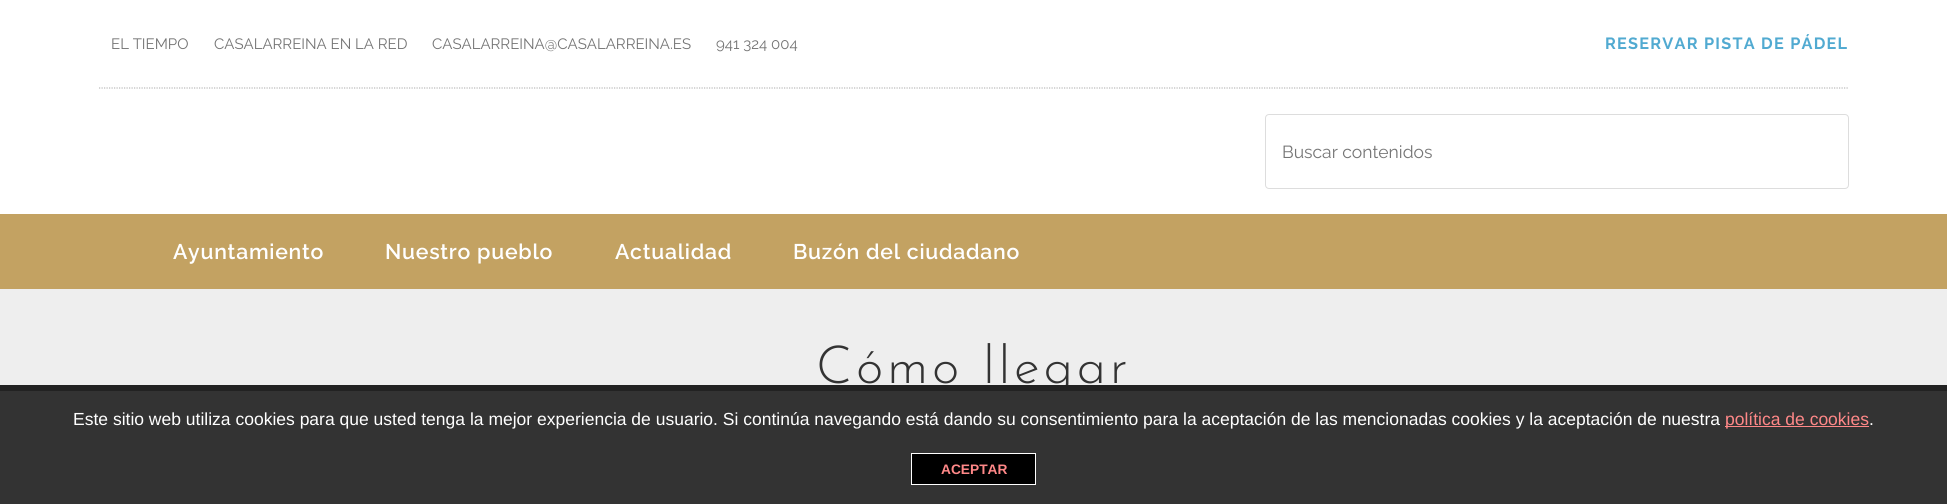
import math
import cairo


def write_spaced(ctx, x, y, s, letter, word):
	ctx.move_to(x, y)
	for ch in s:
		ctx.show_text(ch)
		ctx.rel_move_to(letter + word * (ch == ' '), 0)

def round_path(ctx, x, y, w, h, r):
	ctx.new_sub_path()
	for i, (u, v) in enumerate([(x + w - r, y + h - r), (x + r, y + h - r), (x + r, y + r), (x + w - r, y + r)]):
		ctx.arc(u, v, r, i * math.pi / 2, (i + 1) * math.pi / 2)
	ctx.close_path()

def draw(ctx):
	ctx.set_source_rgb(1, 1, 1)
	ctx.paint()
	ctx.select_font_face('Raleway')
	ctx.set_font_size(15)
	ctx.set_source_rgb(0.459, 0.459, 0.459)
	for x, y, s in [
		(111, 49, 'EL TIEMPO'),
		(214, 49, 'CASALARREINA EN LA RED'),
		(432, 49, 'CASALARREINA@CASALARREINA.ES'),
		(716, 49, '941 324 004'),
	]:
		ctx.move_to(x, y)
		ctx.show_text(s)
	ctx.select_font_face('Raleway', cairo.FONT_SLANT_NORMAL, cairo.FONT_WEIGHT_BOLD)
	ctx.set_font_size(16.25)
	ctx.set_source_rgb(0.318, 0.667, 0.82)
	write_spaced(ctx, 1605, 49, 'RESERVAR PISTA DE PÁDEL', 1.25, 0)
	ctx.new_path()
	ctx.move_to(99, 88)
	ctx.line_to(1849, 88)
	ctx.set_source_rgb(0.729, 0.729, 0.729)
	ctx.set_line_width(1.2)
	ctx.set_dash([1.25, 1.25])
	ctx.stroke()
	round_path(ctx, 1265.5, 114.5, 583, 74, 3.5)
	ctx.set_source_rgb(0.867, 0.867, 0.867)
	ctx.set_line_width(1)
	ctx.set_dash([])
	ctx.stroke()
	ctx.select_font_face('Raleway')
	ctx.set_font_size(17.5)
	ctx.set_source_rgb(0.459, 0.459, 0.459)
	ctx.move_to(1282, 158)
	ctx.show_text('Buscar contenidos')
	ctx.set_source_rgb(0.765, 0.635, 0.384)
	ctx.rectangle(0, 214, 1947, 75)
	ctx.fill()
	ctx.select_font_face('Raleway SemiBold')
	ctx.set_font_size(21.25)
	ctx.set_source_rgb(1, 1, 1)
	for x, y, s in [
		(173, 259, 'Ayuntamiento'),
		(385, 259, 'Nuestro pueblo'),
		(615, 259, 'Actualidad'),
		(793, 259, 'Buzón del ciudadano'),
	]:
		write_spaced(ctx, x, y, s, 0.75, 0)
	ctx.set_source_rgb(0.933, 0.933, 0.933)
	ctx.rectangle(0, 289, 1947, 96)
	ctx.fill()
	ctx.select_font_face('Josefin Sans Light')
	ctx.set_font_size(52.5)
	ctx.set_source_rgb(0.2, 0.2, 0.2)
	write_spaced(ctx, 816, 383, 'Cómo llegar', 3.75, 0)
	ctx.rectangle(0, 391, 1947, 113)
	ctx.fill()
	ctx.set_source_rgb(0.133, 0.133, 0.133)
	ctx.rectangle(0, 385, 1947, 6)
	ctx.fill()
	ctx.select_font_face('Liberation Sans')
	ctx.set_font_size(17.5)
	ctx.set_source_rgb(1, 1, 1)
	ctx.move_to(73, 425)
	ctx.show_text('Este sitio web utiliza cookies para que usted tenga la mejor experiencia de usuario. Si continúa navegando está dando su consentimiento para la aceptación de las mencionadas cookies y la aceptación de nuestra')
	ctx.set_source_rgb(1, 0.533, 0.533)
	ctx.rectangle(1725, 426, 144, 1)
	ctx.fill()
	ctx.move_to(1725, 425)
	ctx.show_text('política de cookies')
	ctx.set_source_rgb(1, 1, 1)
	ctx.move_to(1869, 425)
	ctx.show_text('.')
	ctx.set_source_rgb(0, 0, 0)
	ctx.rectangle(911.5, 453.5, 124, 31)
	ctx.fill_preserve()
	ctx.set_source_rgb(1, 1, 1)
	ctx.stroke()
	ctx.select_font_face('Liberation Sans', cairo.FONT_SLANT_NORMAL, cairo.FONT_WEIGHT_BOLD)
	ctx.set_font_size(13.75)
	ctx.set_source_rgb(1, 0.533, 0.533)
	ctx.move_to(941, 474)
	ctx.show_text('ACEPTAR')


surface = cairo.ImageSurface(cairo.FORMAT_RGB24, 1947, 504)
ctx = cairo.Context(surface)
options = cairo.FontOptions()
options.set_hint_metrics(cairo.HINT_METRICS_OFF)
options.set_hint_style(cairo.HINT_STYLE_NONE)
ctx.set_font_options(options)
ctx.set_miter_limit(4)
draw(ctx)
surface.write_to_png('image.png')
